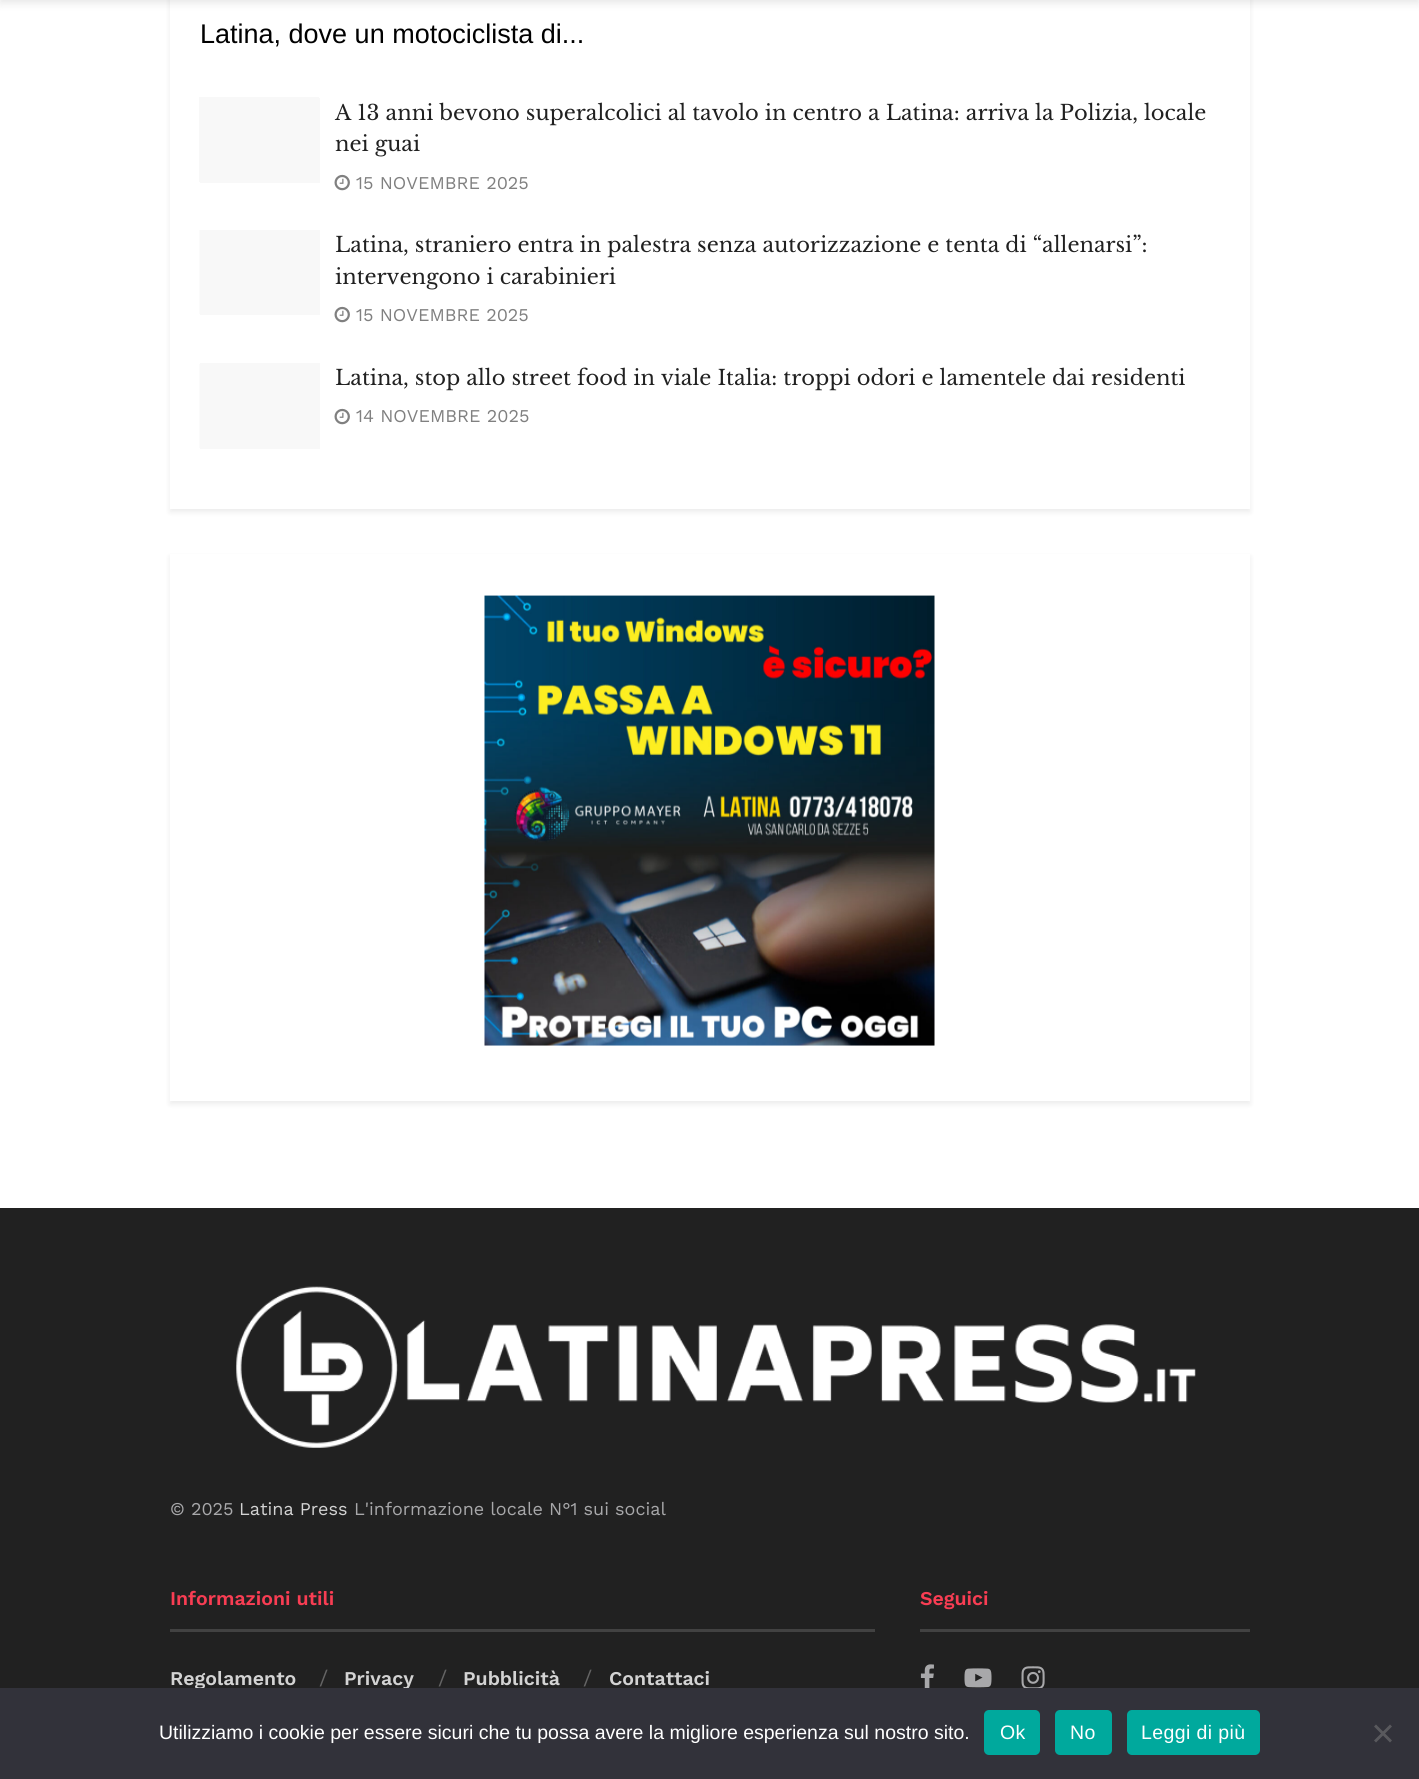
import math
import cairo


def write_spaced(ctx, x, y, s, letter, word):
	ctx.move_to(x, y)
	for ch in s:
		ctx.show_text(ch)
		ctx.rel_move_to(letter + word * (ch == ' '), 0)

def round_path(ctx, x, y, w, h, r):
	ctx.new_sub_path()
	for i, (u, v) in enumerate([(x + w - r, y + h - r), (x + r, y + h - r), (x + r, y + r), (x + w - r, y + r)]):
		ctx.arc(u, v, r, i * math.pi / 2, (i + 1) * math.pi / 2)
	ctx.close_path()

def blur_box(ctx, x, y, w, h, r, blur, alpha):
	ctx.push_group_with_content(cairo.CONTENT_ALPHA)
	ctx.set_operator(cairo.OPERATOR_SOURCE)
	for i in range(15, -16, -2):
		e = blur * i / 6
		if min(w, h) + 2 * e > 0:
			ctx.set_source_rgba(0, 0, 0, alpha * math.erfc((i - 1) / 8.5) / 2)
			round_path(ctx, x - e, y - e, w + 2 * e, h + 2 * e, max(0, min(r + e + blur * .6, min(w, h) / 2 + e)))
			ctx.fill()
	ctx.mask(ctx.pop_group())

def paste(ctx, path, x, y, w, h):
	ctx.save()
	ctx.set_source_surface(cairo.ImageSurface.create_from_png(path), x, y)
	ctx.rectangle(x, y, w, h)
	ctx.fill()
	ctx.restore()

def draw(ctx):
	ctx.set_source_rgb(0.129, 0.129, 0.129)
	ctx.paint()
	ctx.set_source_rgb(1, 1, 1)
	ctx.rectangle(0, 0, 1419, 1208)
	ctx.fill()
	ctx.set_source_rgb(0, 0, 0)
	blur_box(ctx, 170, -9, 1080, 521, 0, 3, 0.08)
	ctx.set_source_rgb(1, 1, 1)
	ctx.rectangle(170, 0, 1080, 509)
	ctx.fill()
	ctx.set_source_rgb(0, 0, 0)
	blur_box(ctx, 0, -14, 1419, 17, 0, 4.5, 0.1)
	ctx.select_font_face('Liberation Sans')
	ctx.set_font_size(27)
	ctx.set_source_rgb(0, 0, 0)
	ctx.move_to(200, 43)
	ctx.show_text('Latina, dove un motociclista di...')
	ctx.set_source_rgb(0.969, 0.969, 0.969)
	ctx.rectangle(200, 98, 120, 85)
	ctx.fill()
	ctx.rectangle(199, 97, 120, 85)
	ctx.fill()
	ctx.select_font_face('Libre Baskerville')
	ctx.set_font_size(21)
	ctx.set_source_rgb(0.129, 0.129, 0.129)
	ctx.move_to(335, 120)
	ctx.show_text('A 13 anni bevono superalcolici al tavolo in centro a Latina: arriva la Polizia, locale')
	ctx.move_to(335, 151)
	ctx.show_text('nei guai')
	paste(ctx, 'media/1.png', 334, 174, 16, 17)
	ctx.select_font_face('Work Sans')
	ctx.set_font_size(18)
	ctx.set_source_rgb(0.502, 0.502, 0.502)
	ctx.move_to(356, 189)
	ctx.show_text('15 NOVEMBRE 2025')
	ctx.set_source_rgb(0.969, 0.969, 0.969)
	ctx.rectangle(200, 230, 120, 85)
	ctx.fill()
	ctx.set_source_rgb(0.984, 0.984, 0.984)
	ctx.rectangle(199, 230, 1, 84)
	ctx.fill()
	ctx.select_font_face('Libre Baskerville')
	ctx.set_font_size(21)
	ctx.set_source_rgb(0.129, 0.129, 0.129)
	ctx.move_to(335, 252)
	ctx.show_text('Latina, straniero entra in palestra senza autorizzazione e tenta di “allenarsi”:')
	ctx.move_to(335, 284)
	ctx.show_text('intervengono i carabinieri')
	paste(ctx, 'media/1.png', 334, 306, 16, 17)
	ctx.select_font_face('Work Sans')
	ctx.set_font_size(18)
	ctx.set_source_rgb(0.502, 0.502, 0.502)
	ctx.move_to(356, 321)
	ctx.show_text('15 NOVEMBRE 2025')
	ctx.set_source_rgb(0.969, 0.969, 0.969)
	ctx.rectangle(200, 363, 120, 86)
	ctx.fill()
	ctx.set_source_rgb(0.984, 0.984, 0.984)
	ctx.rectangle(199, 364, 1, 84)
	ctx.fill()
	ctx.select_font_face('Libre Baskerville')
	ctx.set_font_size(21)
	ctx.set_source_rgb(0.129, 0.129, 0.129)
	ctx.move_to(335, 385)
	ctx.show_text('Latina, stop allo street food in viale Italia: troppi odori e lamentele dai residenti')
	paste(ctx, 'media/1.png', 334, 408, 16, 17)
	ctx.select_font_face('Work Sans')
	ctx.set_font_size(18)
	ctx.set_source_rgb(0.502, 0.502, 0.502)
	ctx.move_to(356, 422)
	ctx.show_text('14 NOVEMBRE 2025')
	ctx.set_source_rgb(0, 0, 0)
	blur_box(ctx, 170, 557, 1080, 547, 0, 3, 0.08)
	ctx.set_source_rgb(1, 1, 1)
	ctx.rectangle(170, 554, 1080, 547)
	ctx.fill()
	paste(ctx, 'media/2.png', 484, 595, 451, 451)
	paste(ctx, 'media/3.png', 236, 1286, 960, 162)
	ctx.set_source_rgb(0.659, 0.659, 0.667)
	ctx.move_to(170, 1515)
	ctx.show_text('© 2025')
	ctx.set_source_rgb(0.827, 0.827, 0.827)
	ctx.move_to(239, 1515)
	ctx.show_text('Latina Press')
	ctx.set_source_rgb(0.659, 0.659, 0.667)
	ctx.move_to(354, 1515)
	ctx.show_text('L\'informazione locale N°1 sui social')
	ctx.set_source_rgb(0.259, 0.259, 0.259)
	ctx.rectangle(170, 1629, 705, 3)
	ctx.fill()
	ctx.select_font_face('Work Sans SemiBold')
	ctx.set_font_size(19.5)
	ctx.set_source_rgb(0.976, 0.239, 0.325)
	ctx.move_to(170, 1605)
	ctx.show_text('Informazioni utili')
	ctx.set_source_rgb(0.827, 0.827, 0.827)
	ctx.move_to(170, 1685)
	ctx.show_text('Regolamento')
	ctx.select_font_face('Work Sans')
	ctx.set_font_size(21)
	ctx.set_source_rgb(0.392, 0.392, 0.392)
	ctx.move_to(319, 1685)
	ctx.show_text('/')
	ctx.select_font_face('Work Sans SemiBold')
	ctx.set_font_size(19.5)
	ctx.set_source_rgb(0.827, 0.827, 0.827)
	ctx.move_to(344, 1685)
	ctx.show_text('Privacy')
	ctx.select_font_face('Work Sans')
	ctx.set_font_size(21)
	ctx.set_source_rgb(0.392, 0.392, 0.392)
	ctx.move_to(438, 1685)
	ctx.show_text('/')
	ctx.select_font_face('Work Sans SemiBold')
	ctx.set_font_size(19.5)
	ctx.set_source_rgb(0.827, 0.827, 0.827)
	ctx.move_to(463, 1685)
	ctx.show_text('Pubblicità')
	ctx.select_font_face('Work Sans')
	ctx.set_font_size(21)
	ctx.set_source_rgb(0.392, 0.392, 0.392)
	ctx.move_to(583, 1685)
	ctx.show_text('/')
	ctx.select_font_face('Work Sans SemiBold')
	ctx.set_font_size(19.5)
	ctx.set_source_rgb(0.827, 0.827, 0.827)
	ctx.move_to(609, 1685)
	ctx.show_text('Contattaci')
	ctx.set_source_rgb(0.259, 0.259, 0.259)
	ctx.rectangle(920, 1629, 330, 3)
	ctx.fill()
	ctx.set_source_rgb(0.976, 0.239, 0.325)
	ctx.move_to(920, 1605)
	ctx.show_text('Seguici')
	paste(ctx, 'media/4.png', 920, 1664, 14, 24)
	paste(ctx, 'media/5.png', 964, 1668, 28, 20)
	paste(ctx, 'media/6.png', 1021, 1666, 24, 22)
	ctx.set_source_rgb(0.196, 0.196, 0.227)
	ctx.rectangle(0, 1688, 1419, 91)
	ctx.fill()
	ctx.select_font_face('Liberation Sans')
	ctx.set_source_rgb(1, 1, 1)
	ctx.move_to(159, 1739)
	ctx.show_text('Utilizziamo i cookie per essere sicuri che tu possa avere la migliore esperienza sul nostro sito.')
	ctx.set_source_rgb(0, 0.663, 0.616)
	round_path(ctx, 984, 1710, 56, 45, 5)
	ctx.fill()
	ctx.set_source_rgb(1, 1, 1)
	write_spaced(ctx, 1000, 1739, 'Ok', 0.4, 0)
	ctx.set_source_rgb(0, 0.663, 0.616)
	round_path(ctx, 1055, 1710, 57, 45, 5)
	ctx.fill()
	ctx.set_source_rgb(1, 1, 1)
	write_spaced(ctx, 1070, 1739, 'No', 0.4, 0)
	ctx.set_source_rgb(0, 0.663, 0.616)
	round_path(ctx, 1127, 1710, 133, 45, 5)
	ctx.fill()
	ctx.set_source_rgb(1, 1, 1)
	write_spaced(ctx, 1141, 1739, 'Leggi di più', 0.4, 0)
	ctx.set_source_rgb(0.349, 0.349, 0.365)
	ctx.new_path()
	ctx.move_to(1390, 1724.5)
	ctx.line_to(1392, 1726.5)
	ctx.line_to(1376, 1742.5)
	ctx.line_to(1374, 1740.5)
	ctx.close_path()
	ctx.fill()
	ctx.new_path()
	ctx.move_to(1374, 1726.5)
	ctx.line_to(1376, 1724.5)
	ctx.line_to(1392, 1740.5)
	ctx.line_to(1390, 1742.5)
	ctx.close_path()
	ctx.fill()


surface = cairo.ImageSurface(cairo.FORMAT_RGB24, 1419, 1779)
ctx = cairo.Context(surface)
options = cairo.FontOptions()
options.set_hint_metrics(cairo.HINT_METRICS_OFF)
options.set_hint_style(cairo.HINT_STYLE_NONE)
ctx.set_font_options(options)
ctx.set_miter_limit(4)
draw(ctx)
surface.write_to_png('image.png')
